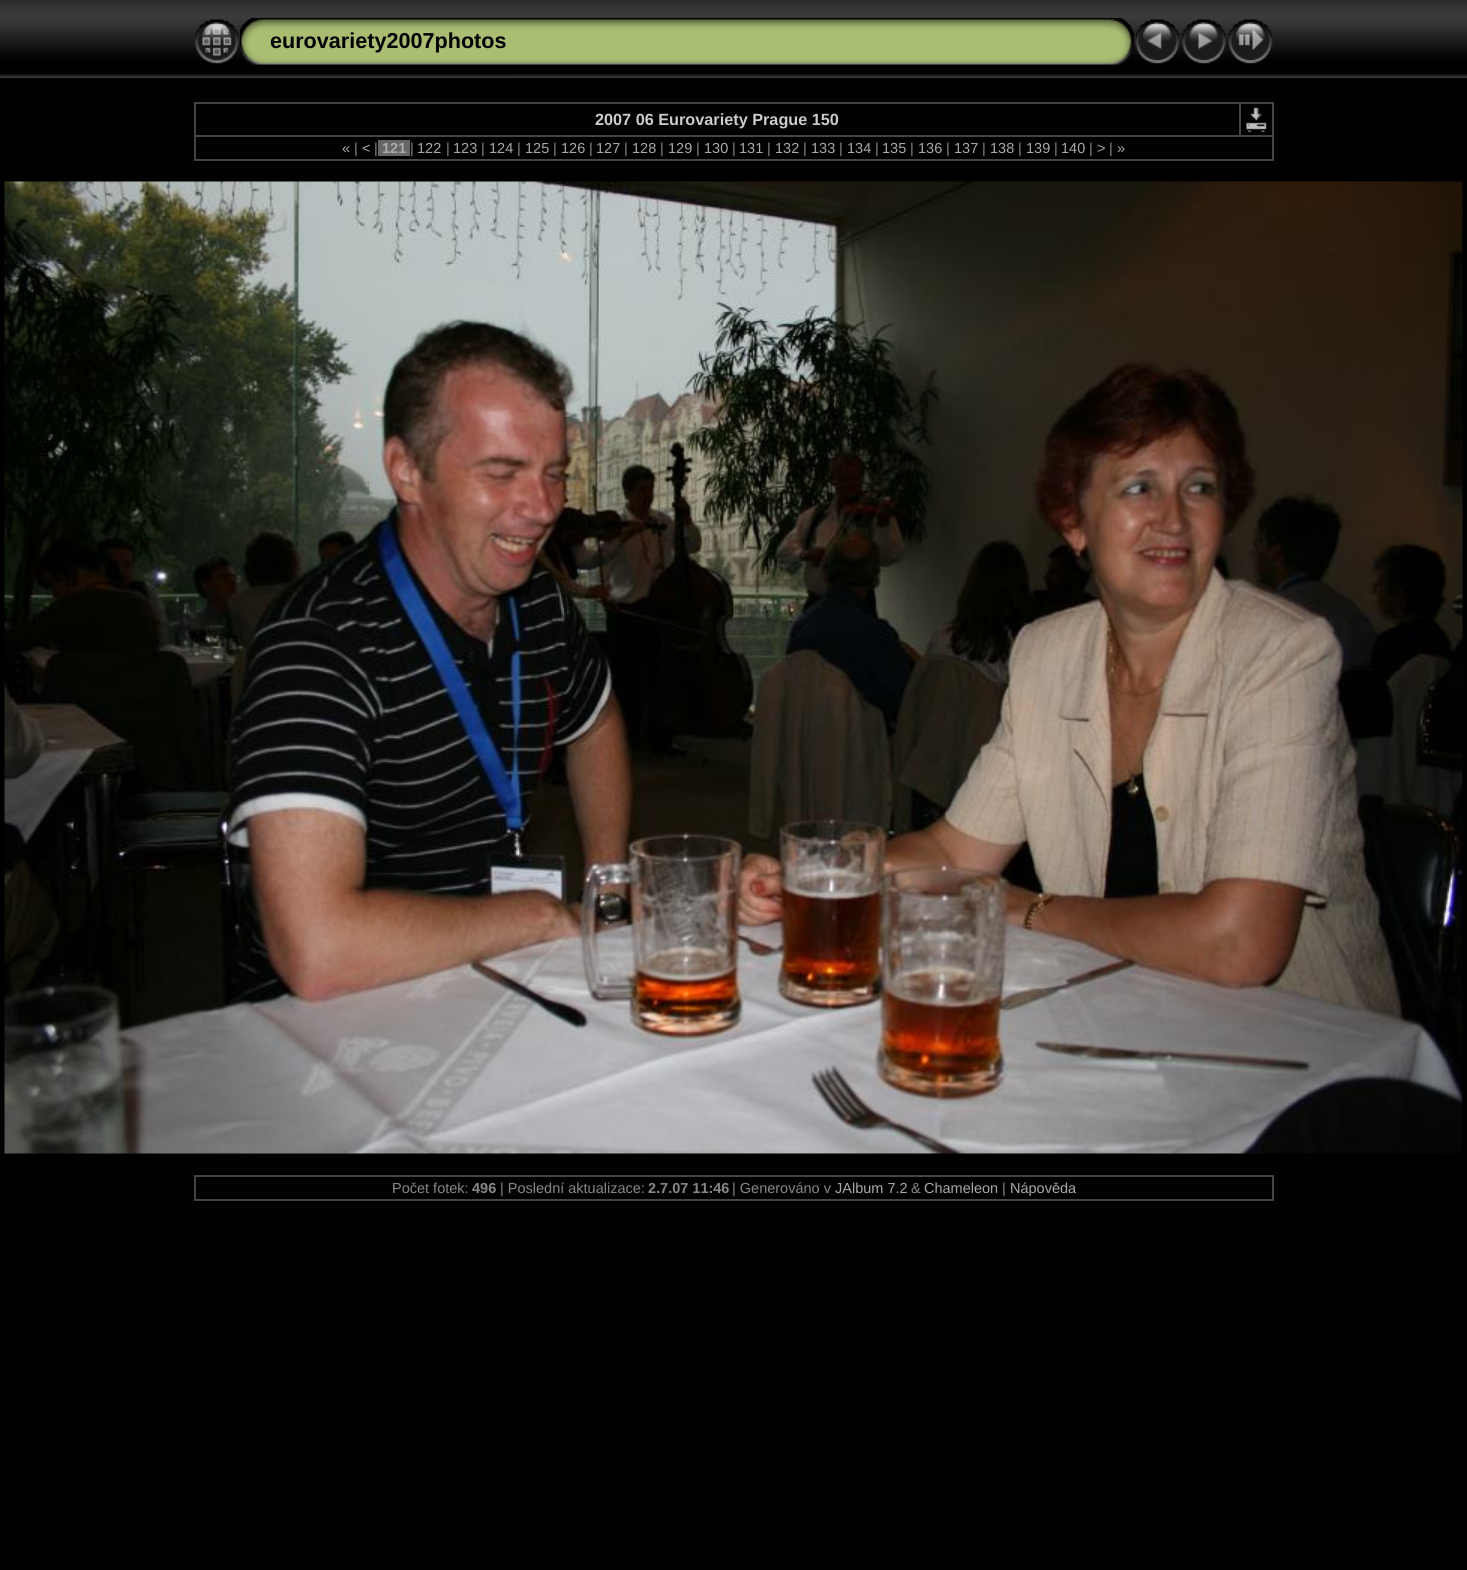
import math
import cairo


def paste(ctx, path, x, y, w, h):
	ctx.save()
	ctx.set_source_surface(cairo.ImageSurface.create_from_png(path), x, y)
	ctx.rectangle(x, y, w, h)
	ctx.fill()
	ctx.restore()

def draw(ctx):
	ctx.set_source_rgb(0, 0, 0)
	ctx.paint()
	paste(ctx, 'media/1.png', 0, 0, 1467, 78)
	paste(ctx, 'media/2.png', 194, 19, 45, 45)
	paste(ctx, 'media/3.png', 240, 18, 30, 47)
	paste(ctx, 'media/4.png', 270, 18, 834, 47)
	ctx.select_font_face('Liberation Sans', cairo.FONT_SLANT_NORMAL, cairo.FONT_WEIGHT_BOLD)
	ctx.set_font_size(21.6)
	ctx.set_source_rgb(0, 0, 0)
	ctx.move_to(270, 48)
	ctx.show_text('eurovariety2007photos')
	paste(ctx, 'media/5.png', 1104, 18, 30, 47)
	paste(ctx, 'media/6.png', 1135, 19, 45, 45)
	paste(ctx, 'media/7.png', 1181, 19, 45, 45)
	paste(ctx, 'media/8.png', 1228, 19, 45, 45)
	ctx.set_source_rgb(0.267, 0.267, 0.267)
	ctx.rectangle(194, 102, 1080, 2)
	ctx.rectangle(1272, 102, 2, 59)
	ctx.rectangle(194, 159, 1080, 2)
	ctx.rectangle(194, 102, 2, 59)
	ctx.fill()
	ctx.set_font_size(16.25)
	ctx.set_source_rgb(0.8, 0.8, 0.8)
	ctx.move_to(595, 125)
	ctx.show_text('2007 06 Eurovariety Prague 150')
	ctx.set_source_rgb(0.267, 0.267, 0.267)
	ctx.rectangle(194, 135, 1080, 2)
	ctx.fill()
	ctx.rectangle(1239, 102, 2, 35)
	ctx.fill()
	paste(ctx, 'media/9.png', 1246, 107, 21, 25)
	ctx.select_font_face('Liberation Sans')
	ctx.set_font_size(14.5)
	ctx.set_source_rgb(0.667, 0.667, 0.667)
	ctx.move_to(342, 153)
	ctx.show_text('«')
	ctx.set_source_rgb(0.533, 0.533, 0.533)
	ctx.move_to(354, 153)
	ctx.show_text('|')
	ctx.set_source_rgb(0.667, 0.667, 0.667)
	ctx.move_to(362, 153)
	ctx.show_text('<')
	ctx.set_source_rgb(0.533, 0.533, 0.533)
	ctx.move_to(374, 153)
	ctx.show_text('|')
	ctx.set_source_rgb(0.4, 0.4, 0.4)
	ctx.rectangle(378, 140, 32, 16)
	ctx.fill()
	ctx.select_font_face('Liberation Sans', cairo.FONT_SLANT_NORMAL, cairo.FONT_WEIGHT_BOLD)
	ctx.set_source_rgb(0.667, 0.667, 0.667)
	ctx.move_to(382, 153)
	ctx.show_text('121')
	ctx.select_font_face('Liberation Sans')
	ctx.set_source_rgb(0.533, 0.533, 0.533)
	ctx.move_to(410, 153)
	ctx.show_text('|')
	ctx.set_source_rgb(0.667, 0.667, 0.667)
	ctx.move_to(417, 153)
	ctx.show_text('122')
	ctx.set_source_rgb(0.533, 0.533, 0.533)
	ctx.move_to(446, 153)
	ctx.show_text('|')
	ctx.set_source_rgb(0.667, 0.667, 0.667)
	ctx.move_to(453, 153)
	ctx.show_text('123')
	ctx.set_source_rgb(0.533, 0.533, 0.533)
	ctx.move_to(481, 153)
	ctx.show_text('|')
	ctx.set_source_rgb(0.667, 0.667, 0.667)
	ctx.move_to(489, 153)
	ctx.show_text('124')
	ctx.set_source_rgb(0.533, 0.533, 0.533)
	ctx.move_to(517, 153)
	ctx.show_text('|')
	ctx.set_source_rgb(0.667, 0.667, 0.667)
	ctx.move_to(525, 153)
	ctx.show_text('125')
	ctx.set_source_rgb(0.533, 0.533, 0.533)
	ctx.move_to(553, 153)
	ctx.show_text('|')
	ctx.set_source_rgb(0.667, 0.667, 0.667)
	ctx.move_to(561, 153)
	ctx.show_text('126')
	ctx.set_source_rgb(0.533, 0.533, 0.533)
	ctx.move_to(589, 153)
	ctx.show_text('|')
	ctx.set_source_rgb(0.667, 0.667, 0.667)
	ctx.move_to(596, 153)
	ctx.show_text('127')
	ctx.set_source_rgb(0.533, 0.533, 0.533)
	ctx.move_to(624, 153)
	ctx.show_text('|')
	ctx.set_source_rgb(0.667, 0.667, 0.667)
	ctx.move_to(632, 153)
	ctx.show_text('128')
	ctx.set_source_rgb(0.533, 0.533, 0.533)
	ctx.move_to(660, 153)
	ctx.show_text('|')
	ctx.set_source_rgb(0.667, 0.667, 0.667)
	ctx.move_to(668, 153)
	ctx.show_text('129')
	ctx.set_source_rgb(0.533, 0.533, 0.533)
	ctx.move_to(696, 153)
	ctx.show_text('|')
	ctx.set_source_rgb(0.667, 0.667, 0.667)
	ctx.move_to(704, 153)
	ctx.show_text('130')
	ctx.set_source_rgb(0.533, 0.533, 0.533)
	ctx.move_to(732, 153)
	ctx.show_text('|')
	ctx.set_source_rgb(0.667, 0.667, 0.667)
	ctx.move_to(739, 153)
	ctx.show_text('131')
	ctx.set_source_rgb(0.533, 0.533, 0.533)
	ctx.move_to(767, 153)
	ctx.show_text('|')
	ctx.set_source_rgb(0.667, 0.667, 0.667)
	ctx.move_to(775, 153)
	ctx.show_text('132')
	ctx.set_source_rgb(0.533, 0.533, 0.533)
	ctx.move_to(803, 153)
	ctx.show_text('|')
	ctx.set_source_rgb(0.667, 0.667, 0.667)
	ctx.move_to(811, 153)
	ctx.show_text('133')
	ctx.set_source_rgb(0.533, 0.533, 0.533)
	ctx.move_to(839, 153)
	ctx.show_text('|')
	ctx.set_source_rgb(0.667, 0.667, 0.667)
	ctx.move_to(847, 153)
	ctx.show_text('134')
	ctx.set_source_rgb(0.533, 0.533, 0.533)
	ctx.move_to(875, 153)
	ctx.show_text('|')
	ctx.set_source_rgb(0.667, 0.667, 0.667)
	ctx.move_to(882, 153)
	ctx.show_text('135')
	ctx.set_source_rgb(0.533, 0.533, 0.533)
	ctx.move_to(910, 153)
	ctx.show_text('|')
	ctx.set_source_rgb(0.667, 0.667, 0.667)
	ctx.move_to(918, 153)
	ctx.show_text('136')
	ctx.set_source_rgb(0.533, 0.533, 0.533)
	ctx.move_to(946, 153)
	ctx.show_text('|')
	ctx.set_source_rgb(0.667, 0.667, 0.667)
	ctx.move_to(954, 153)
	ctx.show_text('137')
	ctx.set_source_rgb(0.533, 0.533, 0.533)
	ctx.move_to(982, 153)
	ctx.show_text('|')
	ctx.set_source_rgb(0.667, 0.667, 0.667)
	ctx.move_to(990, 153)
	ctx.show_text('138')
	ctx.set_source_rgb(0.533, 0.533, 0.533)
	ctx.move_to(1018, 153)
	ctx.show_text('|')
	ctx.set_source_rgb(0.667, 0.667, 0.667)
	ctx.move_to(1026, 153)
	ctx.show_text('139')
	ctx.set_source_rgb(0.533, 0.533, 0.533)
	ctx.move_to(1054, 153)
	ctx.show_text('|')
	ctx.set_source_rgb(0.667, 0.667, 0.667)
	ctx.move_to(1061, 153)
	ctx.show_text('140')
	ctx.set_source_rgb(0.533, 0.533, 0.533)
	ctx.move_to(1089, 153)
	ctx.show_text('|')
	ctx.set_source_rgb(0.667, 0.667, 0.667)
	ctx.move_to(1097, 153)
	ctx.show_text('>')
	ctx.set_source_rgb(0.533, 0.533, 0.533)
	ctx.move_to(1109, 153)
	ctx.show_text('|')
	ctx.set_source_rgb(0.667, 0.667, 0.667)
	ctx.move_to(1117, 153)
	ctx.show_text('»')
	paste(ctx, 'media/10.png', 4, 181, 1459, 973)
	ctx.set_source_rgb(0.267, 0.267, 0.267)
	ctx.rectangle(194, 1175, 1080, 2)
	ctx.rectangle(1272, 1175, 2, 25)
	ctx.rectangle(194, 1199, 1080, 2)
	ctx.rectangle(194, 1175, 2, 25)
	ctx.fill()
	ctx.set_source_rgb(0.533, 0.533, 0.533)
	ctx.move_to(392, 1193)
	ctx.show_text('Počet fotek:')
	ctx.select_font_face('Liberation Sans', cairo.FONT_SLANT_NORMAL, cairo.FONT_WEIGHT_BOLD)
	ctx.move_to(472, 1193)
	ctx.show_text('496')
	ctx.select_font_face('Liberation Sans')
	ctx.move_to(500, 1193)
	ctx.show_text('| Poslední aktualizace:')
	ctx.select_font_face('Liberation Sans', cairo.FONT_SLANT_NORMAL, cairo.FONT_WEIGHT_BOLD)
	ctx.move_to(648, 1193)
	ctx.show_text('2.7.07 11:46')
	ctx.select_font_face('Liberation Sans')
	ctx.move_to(732, 1193)
	ctx.show_text('| Generováno v')
	ctx.set_source_rgb(0.667, 0.667, 0.667)
	ctx.move_to(835, 1193)
	ctx.show_text('JAlbum 7.2')
	ctx.set_source_rgb(0.533, 0.533, 0.533)
	ctx.move_to(911, 1193)
	ctx.show_text('&')
	ctx.set_source_rgb(0.667, 0.667, 0.667)
	ctx.move_to(924, 1193)
	ctx.show_text('Chameleon')
	ctx.set_source_rgb(0.533, 0.533, 0.533)
	ctx.move_to(1002, 1193)
	ctx.show_text('|')
	ctx.set_source_rgb(0.667, 0.667, 0.667)
	ctx.move_to(1010, 1193)
	ctx.show_text('Nápověda')


surface = cairo.ImageSurface(cairo.FORMAT_RGB24, 1467, 1570)
ctx = cairo.Context(surface)
options = cairo.FontOptions()
options.set_hint_metrics(cairo.HINT_METRICS_OFF)
options.set_hint_style(cairo.HINT_STYLE_NONE)
ctx.set_font_options(options)
ctx.set_miter_limit(4)
draw(ctx)
surface.write_to_png('image.png')
